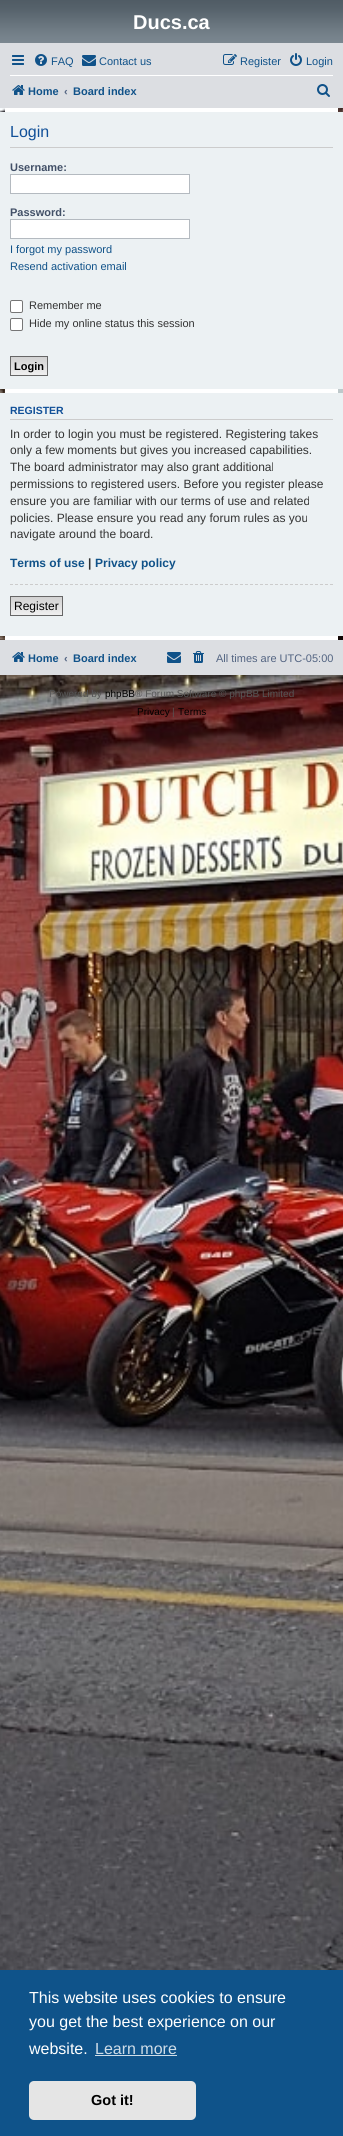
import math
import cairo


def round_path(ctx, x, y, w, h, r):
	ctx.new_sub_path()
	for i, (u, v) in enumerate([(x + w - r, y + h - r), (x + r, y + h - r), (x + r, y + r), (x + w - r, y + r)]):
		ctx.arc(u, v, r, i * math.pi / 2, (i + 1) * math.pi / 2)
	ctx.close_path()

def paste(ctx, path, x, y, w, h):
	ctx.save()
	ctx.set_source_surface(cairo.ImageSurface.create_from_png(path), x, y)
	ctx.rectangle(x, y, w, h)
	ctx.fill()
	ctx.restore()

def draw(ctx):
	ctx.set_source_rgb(1, 1, 1)
	ctx.paint()
	paste(ctx, 'media/1.png', 0, 731, 343, 1239)
	paste(ctx, 'media/2.png', 0, 108, 343, 623)
	ctx.set_source_rgb(1, 1, 1)
	ctx.rectangle(5, 108, 333, 532)
	ctx.fill()
	gradient = cairo.LinearGradient(172, 0, 172, 44)
	gradient.add_color_stop_rgba(0, 0.431, 0.467, 0.498, 1)
	gradient.add_color_stop_rgba(0.01, 0.314, 0.361, 0.396, 1)
	gradient.add_color_stop_rgba(0.2, 0.337, 0.384, 0.42, 1)
	gradient.add_color_stop_rgba(0.75, 0.451, 0.498, 0.533, 1)
	gradient.add_color_stop_rgba(1, 0.486, 0.533, 0.569, 1)
	ctx.set_source(gradient)
	ctx.rectangle(0, 0, 343, 43)
	ctx.fill()
	ctx.select_font_face('Liberation Sans', cairo.FONT_SLANT_NORMAL, cairo.FONT_WEIGHT_BOLD)
	ctx.set_font_size(20)
	ctx.set_source_rgb(1, 1, 1)
	ctx.move_to(133, 29)
	ctx.show_text('Ducs.ca')
	ctx.set_source_rgb(0.863, 0.871, 0.886)
	ctx.rectangle(0, 43, 343, 65)
	ctx.fill()
	paste(ctx, 'media/3.png', 12, 55, 12, 10)
	paste(ctx, 'media/4.png', 35, 54, 12, 12)
	ctx.select_font_face('Liberation Sans')
	ctx.set_font_size(11)
	ctx.set_source_rgb(0.063, 0.322, 0.537)
	ctx.move_to(51, 65)
	ctx.show_text('FAQ')
	paste(ctx, 'media/5.png', 82, 55, 14, 11)
	ctx.move_to(99, 65)
	ctx.show_text('Contact us')
	paste(ctx, 'media/6.png', 223, 54, 14, 11)
	ctx.move_to(240, 65)
	ctx.show_text('Register')
	paste(ctx, 'media/7.png', 290, 53, 12, 13)
	ctx.move_to(306, 65)
	ctx.show_text('Login')
	ctx.set_source_rgb(1, 1, 1)
	ctx.rectangle(10, 75, 323, 1)
	ctx.fill()
	paste(ctx, 'media/8.png', 12, 85, 13, 10)
	ctx.select_font_face('Liberation Sans', cairo.FONT_SLANT_NORMAL, cairo.FONT_WEIGHT_BOLD)
	ctx.set_source_rgb(0.063, 0.322, 0.537)
	ctx.move_to(28, 95)
	ctx.show_text('Home')
	ctx.set_source_rgb(0.325, 0.392, 0.51)
	ctx.move_to(64, 95)
	ctx.show_text('‹')
	ctx.set_source_rgb(0.063, 0.322, 0.537)
	ctx.move_to(73, 95)
	ctx.show_text('Board index')
	paste(ctx, 'media/9.png', 317, 84, 13, 13)
	ctx.set_source_rgb(0.925, 0.945, 0.953)
	ctx.rectangle(0, 112, 343, 277)
	ctx.fill()
	ctx.set_source_rgb(0.8, 0.8, 0.8)
	ctx.rectangle(10, 147, 323, 1)
	ctx.fill()
	ctx.select_font_face('Liberation Sans')
	ctx.set_font_size(16)
	ctx.set_source_rgb(0.067, 0.314, 0.596)
	ctx.move_to(10, 137)
	ctx.show_text('Login')
	ctx.select_font_face('Liberation Sans', cairo.FONT_SLANT_NORMAL, cairo.FONT_WEIGHT_BOLD)
	ctx.set_font_size(11)
	ctx.set_source_rgb(0.259, 0.314, 0.404)
	ctx.move_to(10, 171)
	ctx.show_text('Username:')
	ctx.set_source_rgb(1, 1, 1)
	ctx.rectangle(10.5, 174.5, 179, 19)
	ctx.fill_preserve()
	ctx.set_source_rgb(0.706, 0.729, 0.753)
	ctx.set_line_width(1)
	ctx.stroke()
	ctx.set_source_rgb(0.259, 0.314, 0.404)
	ctx.move_to(10, 216)
	ctx.show_text('Password:')
	ctx.set_source_rgb(1, 1, 1)
	ctx.rectangle(10.5, 219.5, 179, 19)
	ctx.fill_preserve()
	ctx.set_source_rgb(0.706, 0.729, 0.753)
	ctx.stroke()
	ctx.select_font_face('Liberation Sans')
	ctx.set_source_rgb(0.063, 0.322, 0.537)
	ctx.move_to(10, 253)
	ctx.show_text('I forgot my password')
	ctx.move_to(10, 270)
	ctx.show_text('Resend activation email')
	ctx.set_source_rgb(1, 1, 1)
	round_path(ctx, 10.5, 300.5, 12, 12, 1.5)
	ctx.fill_preserve()
	ctx.set_source_rgb(0.463, 0.463, 0.463)
	ctx.stroke()
	ctx.set_source_rgb(0.2, 0.2, 0.2)
	ctx.move_to(29, 309)
	ctx.show_text('Remember me')
	ctx.set_source_rgb(1, 1, 1)
	round_path(ctx, 10.5, 318.5, 12, 12, 1.5)
	ctx.fill_preserve()
	ctx.set_source_rgb(0.463, 0.463, 0.463)
	ctx.stroke()
	ctx.set_source_rgb(0.2, 0.2, 0.2)
	ctx.move_to(29, 327)
	ctx.show_text('Hide my online status this session')
	gradient = cairo.LinearGradient(29, 357, 29, 375)
	gradient.add_color_stop_rgba(0, 0.824, 0.824, 0.824, 1)
	gradient.add_color_stop_rgba(1, 0.937, 0.937, 0.937, 1)
	ctx.set_source(gradient)
	ctx.rectangle(11, 357, 36, 18)
	ctx.fill()
	ctx.rectangle(10.5, 356.5, 37, 19)
	ctx.set_source_rgb(0.4, 0.4, 0.4)
	ctx.stroke()
	ctx.select_font_face('Liberation Sans', cairo.FONT_SLANT_NORMAL, cairo.FONT_WEIGHT_BOLD)
	ctx.set_source_rgb(0, 0, 0)
	ctx.move_to(14, 370)
	ctx.show_text('Login')
	ctx.set_source_rgb(0.925, 0.945, 0.953)
	ctx.rectangle(0, 393, 343, 243)
	ctx.fill()
	ctx.set_source_rgb(0.8, 0.8, 0.8)
	ctx.rectangle(10, 419, 323, 1)
	ctx.fill()
	ctx.set_font_size(10.5)
	ctx.set_source_rgb(0.067, 0.314, 0.596)
	ctx.move_to(10, 414)
	ctx.show_text('REGISTER')
	ctx.select_font_face('Liberation Sans')
	ctx.set_font_size(12)
	ctx.set_source_rgb(0.2, 0.2, 0.2)
	for x, y, s in [
		(10, 438, 'In order to login you must be registered. Registering takes'),
		(10, 454, 'only a few moments but gives you increased capabilities.'),
		(10, 471, 'The board administrator may also grant additional'),
		(10, 488, 'permissions to registered users. Before you register please'),
		(10, 505, 'ensure you are familiar with our terms of use and related'),
		(10, 522, 'policies. Please ensure you read any forum rules as you'),
		(10, 538, 'navigate around the board.'),
	]:
		ctx.move_to(x, y)
		ctx.show_text(s)
	ctx.select_font_face('Liberation Sans', cairo.FONT_SLANT_NORMAL, cairo.FONT_WEIGHT_BOLD)
	ctx.set_source_rgb(0.063, 0.322, 0.537)
	ctx.move_to(10, 567)
	ctx.show_text('Terms of use')
	ctx.set_source_rgb(0.2, 0.2, 0.2)
	ctx.move_to(88, 567)
	ctx.show_text('|')
	ctx.set_source_rgb(0.063, 0.322, 0.537)
	ctx.move_to(95, 567)
	ctx.show_text('Privacy policy')
	ctx.new_path()
	ctx.move_to(10, 584.5)
	ctx.line_to(333, 584.5)
	ctx.set_source_rgb(0.8, 0.8, 0.8)
	ctx.set_dash([3, 2])
	ctx.stroke()
	gradient = cairo.LinearGradient(37, 597, 37, 615)
	gradient.add_color_stop_rgba(0, 0.824, 0.824, 0.824, 1)
	gradient.add_color_stop_rgba(1, 0.937, 0.937, 0.937, 1)
	ctx.set_source(gradient)
	ctx.rectangle(11, 597, 51, 18)
	ctx.fill()
	ctx.rectangle(10.5, 596.5, 52, 19)
	ctx.set_source_rgb(0.4, 0.4, 0.4)
	ctx.set_dash([])
	ctx.stroke()
	ctx.select_font_face('Liberation Sans')
	ctx.set_source_rgb(0, 0, 0)
	ctx.move_to(14, 610)
	ctx.show_text('Register')
	ctx.set_source_rgb(0.863, 0.871, 0.886)
	ctx.rectangle(0, 640, 343, 35)
	ctx.fill()
	paste(ctx, 'media/8.png', 12, 652, 13, 10)
	ctx.select_font_face('Liberation Sans', cairo.FONT_SLANT_NORMAL, cairo.FONT_WEIGHT_BOLD)
	ctx.set_font_size(11)
	ctx.set_source_rgb(0.063, 0.322, 0.537)
	ctx.move_to(28, 662)
	ctx.show_text('Home')
	ctx.set_source_rgb(0.325, 0.392, 0.51)
	ctx.move_to(64, 662)
	ctx.show_text('‹')
	ctx.set_source_rgb(0.063, 0.322, 0.537)
	ctx.move_to(73, 662)
	ctx.show_text('Board index')
	paste(ctx, 'media/5.png', 167, 652, 14, 11)
	paste(ctx, 'media/10.png', 193, 651, 11, 12)
	ctx.select_font_face('Liberation Sans')
	ctx.set_source_rgb(0.325, 0.392, 0.51)
	ctx.move_to(216, 662)
	ctx.show_text('All times are UTC-05:00')
	ctx.set_font_size(10)
	ctx.set_source_rgb(0.333, 0.333, 0.333)
	ctx.move_to(49, 697)
	ctx.show_text('Powered by')
	ctx.set_source_rgb(0, 0, 0)
	ctx.move_to(105, 697)
	ctx.show_text('phpBB')
	ctx.set_source_rgb(0.333, 0.333, 0.333)
	ctx.move_to(135, 697)
	ctx.show_text('® Forum Software © phpBB Limited')
	ctx.set_source_rgb(0, 0, 0)
	ctx.move_to(137, 715)
	ctx.show_text('Privacy')
	ctx.set_source_rgb(0.333, 0.333, 0.333)
	ctx.move_to(172, 715)
	ctx.show_text('|')
	ctx.set_source_rgb(0, 0, 0)
	ctx.move_to(178, 715)
	ctx.show_text('Terms')
	ctx.set_source_rgb(0.059, 0.325, 0.541)
	ctx.rectangle(0, 1970, 343, 166)
	ctx.fill()
	ctx.set_font_size(16)
	ctx.set_source_rgb(1, 1, 1)
	for x, y, s in [
		(29, 2003, 'This website uses cookies to ensure'),
		(29, 2027, 'you get the best experience on our'),
		(29, 2054, 'website.'),
	]:
		ctx.move_to(x, y)
		ctx.show_text(s)
	ctx.set_source_rgb(0.812, 0.867, 0.91)
	ctx.move_to(95, 2054)
	ctx.show_text('Learn more')
	ctx.rectangle(95, 2055, 82, 1)
	ctx.fill()
	ctx.set_source_rgb(0.898, 0.898, 0.898)
	round_path(ctx, 29, 2081, 167, 39, 5)
	ctx.fill()
	ctx.select_font_face('Liberation Sans', cairo.FONT_SLANT_NORMAL, cairo.FONT_WEIGHT_BOLD)
	ctx.set_font_size(14.5)
	ctx.set_source_rgb(0, 0, 0)
	ctx.move_to(91, 2105)
	ctx.show_text('Got it!')


surface = cairo.ImageSurface(cairo.FORMAT_RGB24, 343, 2136)
ctx = cairo.Context(surface)
options = cairo.FontOptions()
options.set_hint_metrics(cairo.HINT_METRICS_OFF)
options.set_hint_style(cairo.HINT_STYLE_NONE)
ctx.set_font_options(options)
ctx.set_miter_limit(4)
draw(ctx)
surface.write_to_png('image.png')
